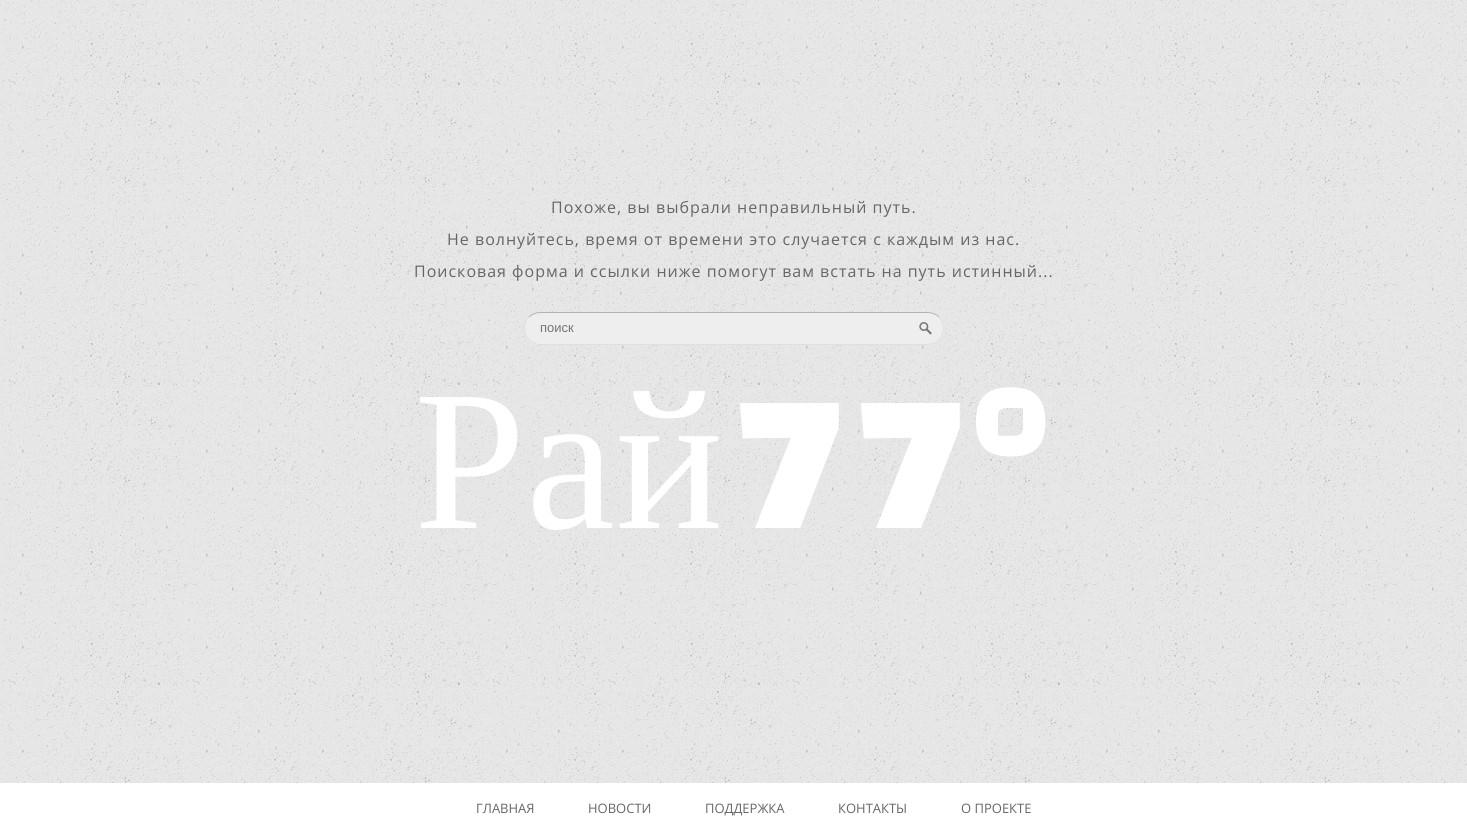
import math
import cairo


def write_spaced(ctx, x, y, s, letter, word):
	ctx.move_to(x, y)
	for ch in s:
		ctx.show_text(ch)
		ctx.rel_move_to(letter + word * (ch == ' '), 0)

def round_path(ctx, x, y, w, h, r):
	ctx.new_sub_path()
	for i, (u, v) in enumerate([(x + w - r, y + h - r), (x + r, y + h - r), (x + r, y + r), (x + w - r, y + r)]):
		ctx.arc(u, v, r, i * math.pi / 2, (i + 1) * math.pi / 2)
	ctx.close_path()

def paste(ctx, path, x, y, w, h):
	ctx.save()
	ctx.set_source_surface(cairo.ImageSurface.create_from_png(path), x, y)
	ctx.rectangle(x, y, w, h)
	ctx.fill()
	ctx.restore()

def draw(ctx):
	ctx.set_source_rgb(1, 1, 1)
	ctx.paint()
	paste(ctx, 'media/1.png', 0, 0, 1467, 783)
	ctx.select_font_face('Open Sans')
	ctx.set_font_size(16)
	ctx.set_source_rgb(0.4, 0.4, 0.4)
	for x, y, s in [
		(551, 213, 'Похоже, вы выбрали неправильный путь.'),
		(447, 245, 'Не волнуйтесь, время от времени это случается с каждым из нас.'),
		(414, 277, 'Поисковая форма и ссылки ниже помогут вам встать на путь истинный...'),
	]:
		write_spaced(ctx, x, y, s, 1, 0)
	ctx.set_source_rgb(0.933, 0.933, 0.933)
	round_path(ctx, 524, 312, 420, 33, 16.5)
	ctx.fill()
	ctx.new_path()
	ctx.move_to(529, 317)
	ctx.curve_to(532, 314, 536.5, 312.5, 540.5, 312.5)
	ctx.line_to(927.5, 312.5)
	ctx.curve_to(931.5, 312.5, 936, 314, 939, 317)
	ctx.set_source_rgb(0.702, 0.702, 0.702)
	ctx.set_line_width(1)
	ctx.stroke()
	ctx.new_path()
	ctx.move_to(939, 317)
	ctx.curve_to(946.5, 325, 944, 339, 933.5, 343.5)
	ctx.line_to(927.5, 344.5)
	ctx.line_to(540.5, 344.5)
	ctx.curve_to(538, 344.5, 535.5, 344, 533, 342.5)
	ctx.curve_to(523.5, 337.5, 521.5, 324.5, 529, 317)
	ctx.set_source_rgb(0.875, 0.875, 0.875)
	ctx.stroke()
	ctx.select_font_face('Liberation Sans')
	ctx.set_font_size(13)
	ctx.set_source_rgb(0.459, 0.459, 0.459)
	ctx.move_to(540, 332)
	ctx.show_text('поиск')
	paste(ctx, 'media/2.png', 919, 322, 13, 13)
	ctx.select_font_face('Liberation Serif')
	ctx.set_font_size(200)
	ctx.set_source_rgb(1, 1, 1)
	write_spaced(ctx, 414, 528, 'Рай', 1, 0)
	ctx.select_font_face('Changa One')
	write_spaced(ctx, 728, 528, '77°', 1, 0)
	ctx.select_font_face('Open Sans')
	ctx.set_font_size(13)
	ctx.set_source_rgb(0.4, 0.4, 0.4)
	for x, y, s in [
		(476, 813, 'ГЛАВНАЯ'),
		(588, 813, 'НОВОСТИ'),
		(705, 813, 'ПОДДЕРЖКА'),
		(838, 813, 'КОНТАКТЫ'),
		(961, 813, 'О ПРОЕКТЕ'),
	]:
		ctx.move_to(x, y)
		ctx.show_text(s)


surface = cairo.ImageSurface(cairo.FORMAT_RGB24, 1467, 833)
ctx = cairo.Context(surface)
options = cairo.FontOptions()
options.set_hint_metrics(cairo.HINT_METRICS_OFF)
options.set_hint_style(cairo.HINT_STYLE_NONE)
ctx.set_font_options(options)
ctx.set_miter_limit(4)
draw(ctx)
surface.write_to_png('image.png')
